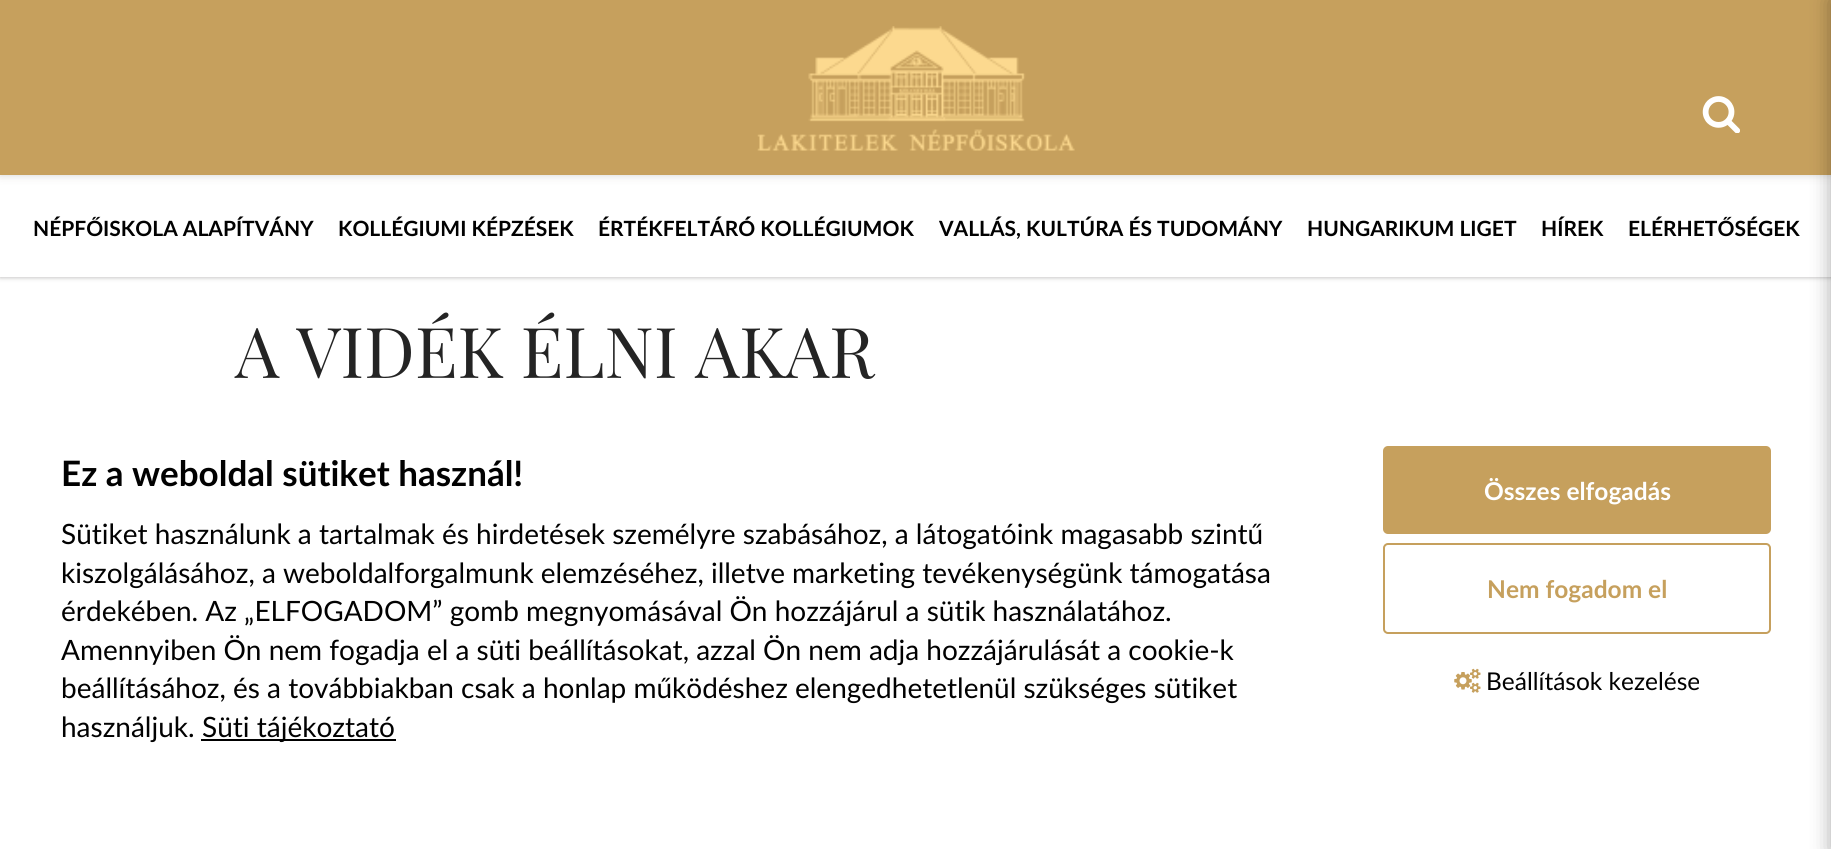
import math
import cairo


def round_path(ctx, x, y, w, h, r):
	ctx.new_sub_path()
	for i, (u, v) in enumerate([(x + w - r, y + h - r), (x + r, y + h - r), (x + r, y + r), (x + w - r, y + r)]):
		ctx.arc(u, v, r, i * math.pi / 2, (i + 1) * math.pi / 2)
	ctx.close_path()

def blur_box(ctx, x, y, w, h, r, blur, alpha):
	ctx.push_group_with_content(cairo.CONTENT_ALPHA)
	ctx.set_operator(cairo.OPERATOR_SOURCE)
	for i in range(15, -16, -2):
		e = blur * i / 6
		if min(w, h) + 2 * e > 0:
			ctx.set_source_rgba(0, 0, 0, alpha * math.erfc((i - 1) / 8.5) / 2)
			round_path(ctx, x - e, y - e, w + 2 * e, h + 2 * e, max(0, min(r + e + blur * .6, min(w, h) / 2 + e)))
			ctx.fill()
	ctx.mask(ctx.pop_group())

def paste(ctx, path, x, y, w, h):
	ctx.save()
	ctx.set_source_surface(cairo.ImageSurface.create_from_png(path), x, y)
	ctx.rectangle(x, y, w, h)
	ctx.fill()
	ctx.restore()

def draw(ctx):
	ctx.set_source_rgb(1, 1, 1)
	ctx.paint()
	ctx.set_source_rgb(0.133, 0.114, 0.098)
	blur_box(ctx, 0, 175, 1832, 102, 0, 2.5, 0.36)
	ctx.set_source_rgb(1, 1, 1)
	ctx.rectangle(0, 175, 1831, 102)
	ctx.fill()
	ctx.set_source_rgb(0.133, 0.114, 0.098)
	blur_box(ctx, 0, 0, 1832, 175, 0, 4.5, 0.2)
	ctx.set_source_rgb(0.776, 0.627, 0.365)
	ctx.rectangle(0, 0, 1831, 175)
	ctx.fill()
	paste(ctx, 'media/1.png', 757, 26, 318, 125)
	paste(ctx, 'media/2.png', 1702, 96, 38, 37)
	ctx.select_font_face('Lato', cairo.FONT_SLANT_NORMAL, cairo.FONT_WEIGHT_BOLD)
	ctx.set_font_size(21)
	ctx.set_source_rgb(0.004, 0.004, 0.004)
	for x, y, s in [
		(33, 236, 'NÉPFŐISKOLA ALAPÍTVÁNY'),
		(338, 236, 'KOLLÉGIUMI KÉPZÉSEK'),
		(598, 236, 'ÉRTÉKFELTÁRÓ KOLLÉGIUMOK'),
		(939, 236, 'VALLÁS, KULTÚRA ÉS TUDOMÁNY'),
		(1307, 236, 'HUNGARIKUM LIGET'),
		(1541, 236, 'HÍREK'),
		(1628, 236, 'ELÉRHETŐSÉGEK'),
	]:
		ctx.move_to(x, y)
		ctx.show_text(s)
	ctx.select_font_face('Playfair Display')
	ctx.set_font_size(70)
	ctx.set_source_rgb(0.141, 0.141, 0.141)
	ctx.move_to(235, 378)
	ctx.show_text('A VIDÉK ÉLNI AKAR')
	ctx.select_font_face('Lato', cairo.FONT_SLANT_NORMAL, cairo.FONT_WEIGHT_BOLD)
	ctx.set_font_size(35)
	ctx.set_source_rgb(0.004, 0.004, 0.004)
	ctx.move_to(61, 486)
	ctx.show_text('Ez a weboldal sütiket használ!')
	ctx.select_font_face('Lato')
	ctx.set_font_size(28)
	for x, y, s in [
		(61, 544, 'Sütiket használunk a tartalmak és hirdetések személyre szabásához, a látogatóink magasabb szintű'),
		(61, 583, 'kiszolgálásához, a weboldalforgalmunk elemzéséhez, illetve marketing tevékenységünk támogatása'),
		(61, 621, 'érdekében. Az „ELFOGADOM” gomb megnyomásával Ön hozzájárul a sütik használatához.'),
		(61, 660, 'Amennyiben Ön nem fogadja el a süti beállításokat, azzal Ön nem adja hozzájárulását a cookie-k'),
		(61, 698, 'beállításához, és a továbbiakban csak a honlap működéshez elengedhetetlenül szükséges sütiket'),
		(61, 737, 'használjuk.'),
	]:
		ctx.move_to(x, y)
		ctx.show_text(s)
	ctx.set_source_rgb(0, 0, 0)
	ctx.rectangle(201, 739, 195, 2)
	ctx.fill()
	ctx.set_source_rgb(0.004, 0.004, 0.004)
	ctx.move_to(202, 737)
	ctx.show_text('Süti tájékoztató')
	ctx.set_source_rgb(0.776, 0.627, 0.365)
	round_path(ctx, 1383, 446, 388, 88, 5)
	ctx.fill()
	ctx.select_font_face('Lato', cairo.FONT_SLANT_NORMAL, cairo.FONT_WEIGHT_BOLD)
	ctx.set_font_size(24.5)
	ctx.set_source_rgb(1, 1, 1)
	ctx.move_to(1484, 500)
	ctx.show_text('Összes elfogadás')
	round_path(ctx, 1384, 544, 386, 89, 4)
	ctx.set_source_rgb(0.776, 0.627, 0.365)
	ctx.stroke()
	ctx.move_to(1487, 598)
	ctx.show_text('Nem fogadom el')
	paste(ctx, 'media/3.png', 1454, 668, 27, 25)
	ctx.select_font_face('Lato')
	ctx.set_source_rgb(0.004, 0.004, 0.004)
	ctx.move_to(1486, 690)
	ctx.show_text('Beállítások kezelése')
	ctx.set_source_rgb(0, 0, 0)
	blur_box(ctx, 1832, 0, 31, 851, 0, 10.5, 0.37)


surface = cairo.ImageSurface(cairo.FORMAT_RGB24, 1831, 849)
ctx = cairo.Context(surface)
options = cairo.FontOptions()
options.set_hint_metrics(cairo.HINT_METRICS_OFF)
options.set_hint_style(cairo.HINT_STYLE_NONE)
ctx.set_font_options(options)
ctx.set_miter_limit(4)
draw(ctx)
surface.write_to_png('image.png')
